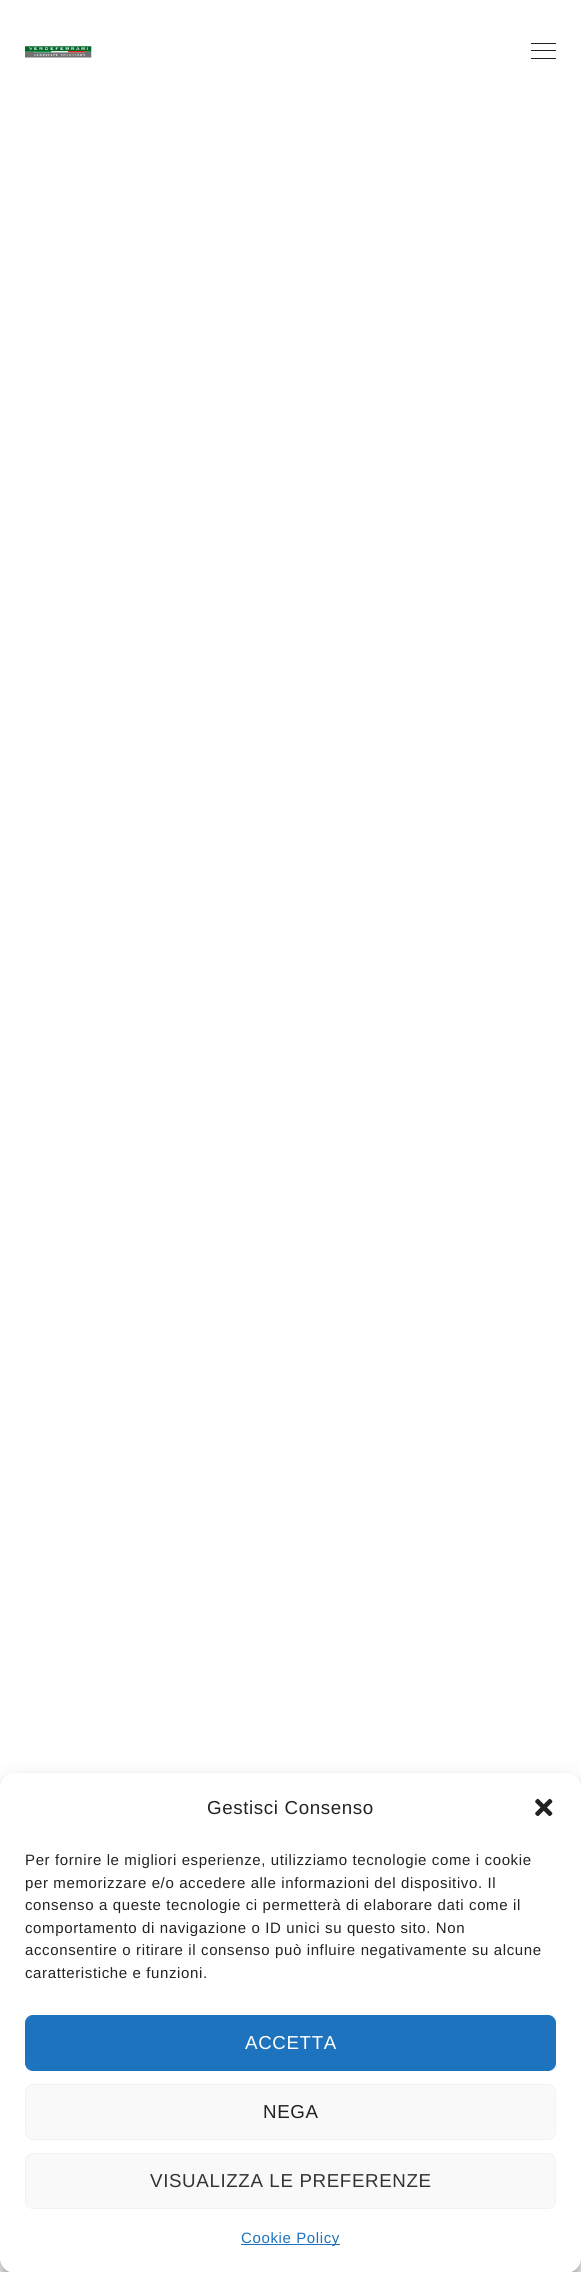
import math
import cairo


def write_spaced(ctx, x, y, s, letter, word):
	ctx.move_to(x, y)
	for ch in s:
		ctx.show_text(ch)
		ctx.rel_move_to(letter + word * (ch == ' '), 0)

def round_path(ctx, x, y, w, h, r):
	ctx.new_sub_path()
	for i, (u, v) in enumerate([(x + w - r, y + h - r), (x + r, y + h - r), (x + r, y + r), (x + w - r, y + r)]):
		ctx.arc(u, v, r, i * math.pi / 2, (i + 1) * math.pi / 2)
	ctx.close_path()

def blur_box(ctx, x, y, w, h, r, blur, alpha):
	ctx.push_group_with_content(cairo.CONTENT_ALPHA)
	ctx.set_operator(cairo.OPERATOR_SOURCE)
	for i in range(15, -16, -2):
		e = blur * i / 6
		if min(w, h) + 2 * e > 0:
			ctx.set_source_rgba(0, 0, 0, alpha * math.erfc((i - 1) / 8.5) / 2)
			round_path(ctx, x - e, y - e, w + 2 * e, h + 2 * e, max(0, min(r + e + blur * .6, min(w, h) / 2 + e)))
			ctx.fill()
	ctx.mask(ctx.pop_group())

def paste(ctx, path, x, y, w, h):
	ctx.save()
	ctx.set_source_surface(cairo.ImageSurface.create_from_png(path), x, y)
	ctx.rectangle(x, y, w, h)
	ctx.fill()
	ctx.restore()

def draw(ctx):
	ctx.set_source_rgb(1, 1, 1)
	ctx.paint()
	paste(ctx, 'media/1.png', 25, 46, 67, 12)
	ctx.set_source_rgb(0.125, 0.125, 0.125)
	ctx.rectangle(531, 43, 25, 1)
	ctx.rectangle(531, 50, 25, 1)
	ctx.rectangle(531, 58, 25, 1)
	ctx.fill()
	ctx.set_source_rgb(0, 0, 0)
	blur_box(ctx, 0, 1780, 581, 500, 15, 4, 0.23)
	blur_box(ctx, 0, 1785, 581, 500, 15, 12.5, 0.19)
	ctx.set_source_rgb(1, 1, 1)
	round_path(ctx, 0, 1773, 581, 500, 15)
	ctx.fill()
	ctx.select_font_face('Liberation Sans')
	ctx.set_font_size(18.75)
	ctx.set_source_rgb(0.133, 0.133, 0.133)
	write_spaced(ctx, 207, 1814, 'Gestisci Consenso', 0.62, 0)
	paste(ctx, 'media/2.png', 535, 1798, 18, 19)
	ctx.set_font_size(15)
	for x, y, s in [
		(25, 1865, 'Per fornire le migliori esperienze, utilizziamo tecnologie come i cookie'),
		(25, 1888, 'per memorizzare e/o accedere alle informazioni del dispositivo. Il'),
		(25, 1910, 'consenso a queste tecnologie ci permetterà di elaborare dati come il'),
		(25, 1933, 'comportamento di navigazione o ID unici su questo sito. Non'),
		(25, 1955, 'acconsentire o ritirare il consenso può influire negativamente su alcune'),
		(25, 1978, 'caratteristiche e funzioni.'),
	]:
		write_spaced(ctx, x, y, s, 0.62, 0)
	ctx.set_source_rgb(0.118, 0.451, 0.745)
	round_path(ctx, 25.5, 2015.5, 530, 55, 7.5)
	ctx.fill_preserve()
	ctx.set_line_width(1)
	ctx.stroke()
	ctx.set_font_size(18.75)
	ctx.set_source_rgb(1, 1, 1)
	write_spaced(ctx, 245, 2049, 'ACCETTA', 0.62, 0)
	ctx.set_source_rgb(0.976, 0.976, 0.976)
	round_path(ctx, 25.5, 2084.5, 530, 55, 7.5)
	ctx.fill_preserve()
	ctx.set_source_rgb(0.949, 0.949, 0.949)
	ctx.stroke()
	ctx.set_source_rgb(0.133, 0.133, 0.133)
	write_spaced(ctx, 263, 2118, 'NEGA', 0.62, 0)
	ctx.set_source_rgb(0.976, 0.976, 0.976)
	round_path(ctx, 25.5, 2153.5, 530, 55, 7.5)
	ctx.fill_preserve()
	ctx.set_source_rgb(0.949, 0.949, 0.949)
	ctx.stroke()
	ctx.set_source_rgb(0.2, 0.2, 0.2)
	write_spaced(ctx, 150, 2187, 'VISUALIZZA LE PREFERENZE', 0.62, 0)
	ctx.set_source_rgb(0.118, 0.451, 0.745)
	ctx.rectangle(241, 2244, 99, 1)
	ctx.fill()
	ctx.set_font_size(15)
	write_spaced(ctx, 241, 2243, 'Cookie Policy', 0.62, 0)


surface = cairo.ImageSurface(cairo.FORMAT_RGB24, 581, 2272)
ctx = cairo.Context(surface)
options = cairo.FontOptions()
options.set_hint_metrics(cairo.HINT_METRICS_OFF)
options.set_hint_style(cairo.HINT_STYLE_NONE)
ctx.set_font_options(options)
ctx.set_miter_limit(4)
draw(ctx)
surface.write_to_png('image.png')
